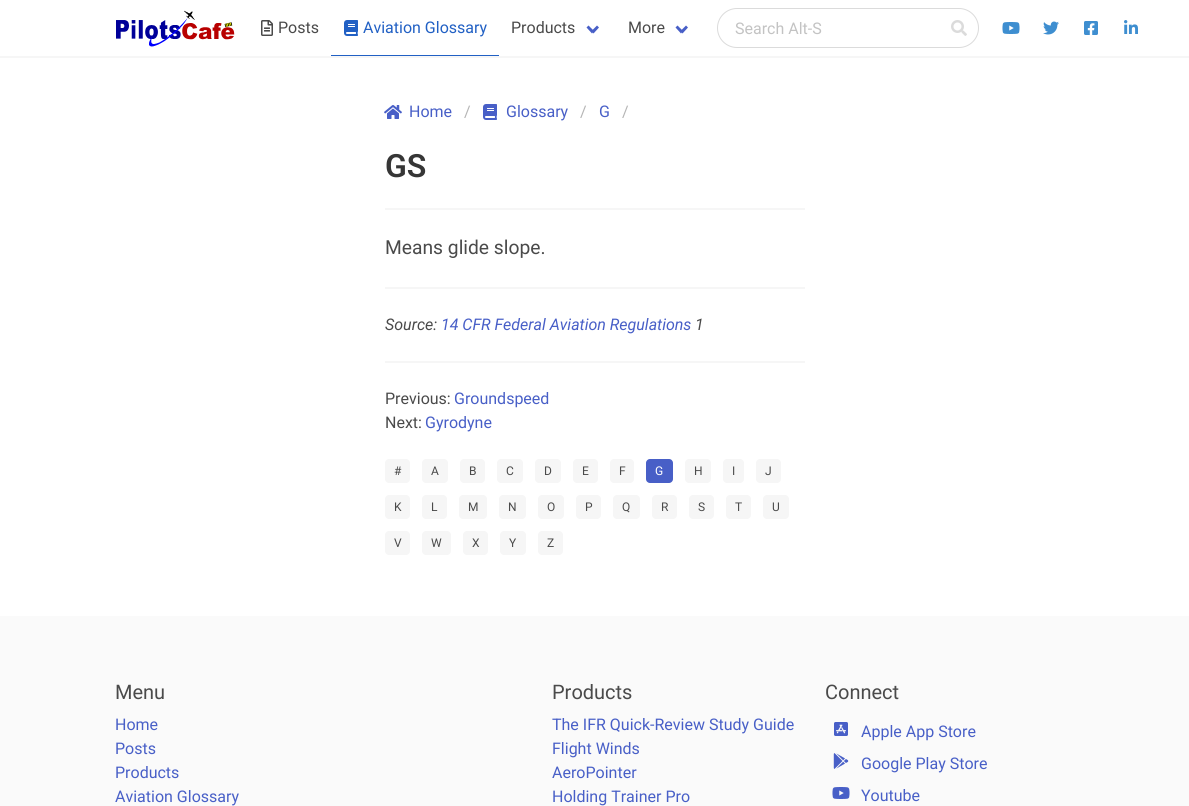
import math
import cairo


def round_path(ctx, x, y, w, h, r):
	ctx.new_sub_path()
	for i, (u, v) in enumerate([(x + w - r, y + h - r), (x + r, y + h - r), (x + r, y + r), (x + w - r, y + r)]):
		ctx.arc(u, v, r, i * math.pi / 2, (i + 1) * math.pi / 2)
	ctx.close_path()

def paste(ctx, path, x, y, w, h):
	ctx.save()
	ctx.set_source_surface(cairo.ImageSurface.create_from_png(path), x, y)
	ctx.rectangle(x, y, w, h)
	ctx.fill()
	ctx.restore()

def draw(ctx):
	ctx.set_source_rgb(1, 1, 1)
	ctx.paint()
	ctx.set_source_rgb(0.961, 0.961, 0.961)
	ctx.rectangle(0, 56, 1189, 2)
	ctx.fill()
	paste(ctx, 'media/1.png', 116, 10, 119, 37)
	paste(ctx, 'media/2.png', 261, 20, 12, 16)
	ctx.select_font_face('Roboto')
	ctx.set_font_size(16)
	ctx.set_source_rgb(0.29, 0.29, 0.29)
	ctx.move_to(278, 33)
	ctx.show_text('Posts')
	ctx.set_source_rgb(0.129, 0.376, 0.769)
	ctx.rectangle(331, 55, 168, 1)
	ctx.fill()
	paste(ctx, 'media/3.png', 344, 20, 14, 16)
	ctx.move_to(363, 33)
	ctx.show_text('Aviation Glossary')
	ctx.set_source_rgb(0.29, 0.29, 0.29)
	ctx.move_to(511, 33)
	ctx.show_text('Products')
	ctx.set_source_rgb(0.282, 0.373, 0.78)
	ctx.new_path()
	ctx.move_to(591.5, 31)
	ctx.line_to(597, 25.5)
	ctx.line_to(599, 27.5)
	ctx.line_to(593.5, 33.5)
	ctx.close_path()
	ctx.fill()
	ctx.new_path()
	ctx.move_to(586.5, 27.5)
	ctx.line_to(588.5, 25.5)
	ctx.line_to(594, 31)
	ctx.line_to(592, 33.5)
	ctx.close_path()
	ctx.fill()
	ctx.set_source_rgb(0.29, 0.29, 0.29)
	ctx.move_to(628, 33)
	ctx.show_text('More')
	ctx.set_source_rgb(0.282, 0.373, 0.78)
	ctx.new_path()
	ctx.move_to(680.5, 31)
	ctx.line_to(686, 25.5)
	ctx.line_to(688, 27.5)
	ctx.line_to(682.5, 33.5)
	ctx.close_path()
	ctx.fill()
	ctx.new_path()
	ctx.move_to(675.5, 27.5)
	ctx.line_to(677.5, 25.5)
	ctx.line_to(683, 31)
	ctx.line_to(681, 33.5)
	ctx.close_path()
	ctx.fill()
	round_path(ctx, 717.5, 8.5, 261, 39, 19.5)
	ctx.set_source_rgb(0.859, 0.859, 0.859)
	ctx.set_line_width(1)
	ctx.stroke()
	ctx.set_source_rgb(0.765, 0.765, 0.765)
	ctx.move_to(735, 34)
	ctx.show_text('Search Alt-S')
	paste(ctx, 'media/4.png', 951, 20, 16, 16)
	paste(ctx, 'media/5.png', 1002, 22, 18, 12)
	paste(ctx, 'media/6.png', 1043, 21, 16, 14)
	paste(ctx, 'media/7.png', 1084, 21, 14, 14)
	paste(ctx, 'media/8.png', 1124, 20, 14, 14)
	paste(ctx, 'media/9.png', 384, 105, 18, 14)
	ctx.set_source_rgb(0.282, 0.373, 0.78)
	ctx.move_to(409, 117)
	ctx.show_text('Home')
	ctx.set_source_rgb(0.71, 0.71, 0.71)
	ctx.move_to(464, 117)
	ctx.show_text('/')
	paste(ctx, 'media/10.png', 483, 104, 14, 16)
	ctx.set_source_rgb(0.282, 0.373, 0.78)
	ctx.move_to(506, 117)
	ctx.show_text('Glossary')
	ctx.set_source_rgb(0.71, 0.71, 0.71)
	ctx.move_to(580, 117)
	ctx.show_text('/')
	ctx.set_source_rgb(0.282, 0.373, 0.78)
	ctx.move_to(599, 117)
	ctx.show_text('G')
	ctx.set_source_rgb(0.71, 0.71, 0.71)
	ctx.move_to(622, 117)
	ctx.show_text('/')
	ctx.select_font_face('Roboto SemiBold')
	ctx.set_font_size(32)
	ctx.set_source_rgb(0.212, 0.212, 0.212)
	ctx.move_to(385, 177)
	ctx.show_text('GS')
	ctx.set_source_rgb(0.961, 0.961, 0.961)
	ctx.rectangle(385, 208, 420, 2)
	ctx.fill()
	ctx.select_font_face('Roboto')
	ctx.set_font_size(19.25)
	ctx.set_source_rgb(0.29, 0.29, 0.29)
	ctx.move_to(385, 254)
	ctx.show_text('Means glide slope.')
	ctx.set_source_rgb(0.961, 0.961, 0.961)
	ctx.rectangle(385, 287, 420, 2)
	ctx.fill()
	ctx.select_font_face('Roboto', cairo.FONT_SLANT_ITALIC)
	ctx.set_font_size(16)
	ctx.set_source_rgb(0.29, 0.29, 0.29)
	ctx.move_to(385, 330)
	ctx.show_text('Source:')
	ctx.set_source_rgb(0.282, 0.373, 0.78)
	ctx.move_to(441, 330)
	ctx.show_text('14 CFR Federal Aviation Regulations')
	ctx.set_source_rgb(0.29, 0.29, 0.29)
	ctx.move_to(695, 330)
	ctx.show_text('1')
	ctx.set_source_rgb(0.961, 0.961, 0.961)
	ctx.rectangle(385, 361, 420, 2)
	ctx.fill()
	ctx.select_font_face('Roboto')
	ctx.set_source_rgb(0.29, 0.29, 0.29)
	ctx.move_to(385, 404)
	ctx.show_text('Previous:')
	ctx.set_source_rgb(0.282, 0.373, 0.78)
	ctx.move_to(454, 404)
	ctx.show_text('Groundspeed')
	ctx.set_source_rgb(0.29, 0.29, 0.29)
	ctx.move_to(385, 428)
	ctx.show_text('Next:')
	ctx.set_source_rgb(0.282, 0.373, 0.78)
	ctx.move_to(425, 428)
	ctx.show_text('Gyrodyne')
	ctx.set_source_rgb(0.961, 0.961, 0.961)
	round_path(ctx, 385, 459, 25, 24, 4)
	ctx.fill()
	ctx.set_font_size(12)
	ctx.set_source_rgb(0.29, 0.29, 0.29)
	ctx.move_to(394, 475)
	ctx.show_text('#')
	ctx.set_source_rgb(0.961, 0.961, 0.961)
	round_path(ctx, 422, 459, 26, 24, 4)
	ctx.fill()
	ctx.set_source_rgb(0.29, 0.29, 0.29)
	ctx.move_to(431, 475)
	ctx.show_text('A')
	ctx.set_source_rgb(0.961, 0.961, 0.961)
	round_path(ctx, 460, 459, 25, 24, 4)
	ctx.fill()
	ctx.set_source_rgb(0.29, 0.29, 0.29)
	ctx.move_to(469, 475)
	ctx.show_text('B')
	ctx.set_source_rgb(0.961, 0.961, 0.961)
	round_path(ctx, 497, 459, 26, 24, 4)
	ctx.fill()
	ctx.set_source_rgb(0.29, 0.29, 0.29)
	ctx.move_to(506, 475)
	ctx.show_text('C')
	ctx.set_source_rgb(0.961, 0.961, 0.961)
	round_path(ctx, 535, 459, 26, 24, 4)
	ctx.fill()
	ctx.set_source_rgb(0.29, 0.29, 0.29)
	ctx.move_to(544, 475)
	ctx.show_text('D')
	ctx.set_source_rgb(0.961, 0.961, 0.961)
	round_path(ctx, 573, 459, 25, 24, 4)
	ctx.fill()
	ctx.set_source_rgb(0.29, 0.29, 0.29)
	ctx.move_to(582, 475)
	ctx.show_text('E')
	ctx.set_source_rgb(0.961, 0.961, 0.961)
	round_path(ctx, 610, 459, 24, 24, 4)
	ctx.fill()
	ctx.set_source_rgb(0.29, 0.29, 0.29)
	ctx.move_to(619, 475)
	ctx.show_text('F')
	ctx.set_source_rgb(0.282, 0.373, 0.78)
	round_path(ctx, 646, 459, 27, 24, 4)
	ctx.fill()
	ctx.set_source_rgb(1, 1, 1)
	ctx.move_to(655, 475)
	ctx.show_text('G')
	ctx.set_source_rgb(0.961, 0.961, 0.961)
	round_path(ctx, 685, 459, 26, 24, 4)
	ctx.fill()
	ctx.set_source_rgb(0.29, 0.29, 0.29)
	ctx.move_to(694, 475)
	ctx.show_text('H')
	ctx.set_source_rgb(0.961, 0.961, 0.961)
	round_path(ctx, 723, 459, 21, 24, 4)
	ctx.fill()
	ctx.set_source_rgb(0.29, 0.29, 0.29)
	ctx.move_to(732, 475)
	ctx.show_text('I')
	ctx.set_source_rgb(0.961, 0.961, 0.961)
	round_path(ctx, 756, 459, 25, 24, 4)
	ctx.fill()
	ctx.set_source_rgb(0.29, 0.29, 0.29)
	ctx.move_to(765, 475)
	ctx.show_text('J')
	ctx.set_source_rgb(0.961, 0.961, 0.961)
	round_path(ctx, 385, 495, 25, 24, 4)
	ctx.fill()
	ctx.set_source_rgb(0.29, 0.29, 0.29)
	ctx.move_to(394, 511)
	ctx.show_text('K')
	ctx.set_source_rgb(0.961, 0.961, 0.961)
	round_path(ctx, 422, 495, 25, 24, 4)
	ctx.fill()
	ctx.set_source_rgb(0.29, 0.29, 0.29)
	ctx.move_to(431, 511)
	ctx.show_text('L')
	ctx.set_source_rgb(0.961, 0.961, 0.961)
	round_path(ctx, 459, 495, 28, 24, 4)
	ctx.fill()
	ctx.set_source_rgb(0.29, 0.29, 0.29)
	ctx.move_to(468, 511)
	ctx.show_text('M')
	ctx.set_source_rgb(0.961, 0.961, 0.961)
	round_path(ctx, 499, 495, 27, 24, 4)
	ctx.fill()
	ctx.set_source_rgb(0.29, 0.29, 0.29)
	ctx.move_to(508, 511)
	ctx.show_text('N')
	ctx.set_source_rgb(0.961, 0.961, 0.961)
	round_path(ctx, 538, 495, 26, 24, 4)
	ctx.fill()
	ctx.set_source_rgb(0.29, 0.29, 0.29)
	ctx.move_to(547, 511)
	ctx.show_text('O')
	ctx.set_source_rgb(0.961, 0.961, 0.961)
	round_path(ctx, 576, 495, 25, 24, 4)
	ctx.fill()
	ctx.set_source_rgb(0.29, 0.29, 0.29)
	ctx.move_to(585, 511)
	ctx.show_text('P')
	ctx.set_source_rgb(0.961, 0.961, 0.961)
	round_path(ctx, 613, 495, 27, 24, 4)
	ctx.fill()
	ctx.set_source_rgb(0.29, 0.29, 0.29)
	ctx.move_to(622, 511)
	ctx.show_text('Q')
	ctx.set_source_rgb(0.961, 0.961, 0.961)
	round_path(ctx, 652, 495, 25, 24, 4)
	ctx.fill()
	ctx.set_source_rgb(0.29, 0.29, 0.29)
	ctx.move_to(661, 511)
	ctx.show_text('R')
	ctx.set_source_rgb(0.961, 0.961, 0.961)
	round_path(ctx, 689, 495, 25, 24, 4)
	ctx.fill()
	ctx.set_source_rgb(0.29, 0.29, 0.29)
	ctx.move_to(698, 511)
	ctx.show_text('S')
	ctx.set_source_rgb(0.961, 0.961, 0.961)
	round_path(ctx, 726, 495, 25, 24, 4)
	ctx.fill()
	ctx.set_source_rgb(0.29, 0.29, 0.29)
	ctx.move_to(735, 511)
	ctx.show_text('T')
	ctx.set_source_rgb(0.961, 0.961, 0.961)
	round_path(ctx, 763, 495, 26, 24, 4)
	ctx.fill()
	ctx.set_source_rgb(0.29, 0.29, 0.29)
	ctx.move_to(772, 511)
	ctx.show_text('U')
	ctx.set_source_rgb(0.961, 0.961, 0.961)
	round_path(ctx, 385, 531, 25, 24, 4)
	ctx.fill()
	ctx.set_source_rgb(0.29, 0.29, 0.29)
	ctx.move_to(394, 547)
	ctx.show_text('V')
	ctx.set_source_rgb(0.961, 0.961, 0.961)
	round_path(ctx, 422, 531, 29, 24, 4)
	ctx.fill()
	ctx.set_source_rgb(0.29, 0.29, 0.29)
	ctx.move_to(431, 547)
	ctx.show_text('W')
	ctx.set_source_rgb(0.961, 0.961, 0.961)
	round_path(ctx, 463, 531, 25, 24, 4)
	ctx.fill()
	ctx.set_source_rgb(0.29, 0.29, 0.29)
	ctx.move_to(472, 547)
	ctx.show_text('X')
	ctx.set_source_rgb(0.961, 0.961, 0.961)
	round_path(ctx, 500, 531, 26, 24, 4)
	ctx.fill()
	ctx.set_source_rgb(0.29, 0.29, 0.29)
	ctx.move_to(509, 547)
	ctx.show_text('Y')
	ctx.set_source_rgb(0.961, 0.961, 0.961)
	round_path(ctx, 538, 531, 25, 24, 4)
	ctx.fill()
	ctx.set_source_rgb(0.29, 0.29, 0.29)
	ctx.move_to(547, 547)
	ctx.show_text('Z')
	ctx.set_source_rgb(0.98, 0.98, 0.98)
	ctx.rectangle(0, 616, 1189, 190)
	ctx.fill()
	ctx.set_font_size(20)
	ctx.set_source_rgb(0.29, 0.29, 0.29)
	ctx.move_to(115, 699)
	ctx.show_text('Menu')
	ctx.set_font_size(16)
	ctx.set_source_rgb(0.282, 0.373, 0.78)
	for x, y, s in [
		(115, 730, 'Home'),
		(115, 754, 'Posts'),
		(115, 778, 'Products'),
		(115, 802, 'Aviation Glossary'),
	]:
		ctx.move_to(x, y)
		ctx.show_text(s)
	ctx.set_font_size(20)
	ctx.set_source_rgb(0.29, 0.29, 0.29)
	ctx.move_to(552, 699)
	ctx.show_text('Products')
	ctx.set_font_size(16)
	ctx.set_source_rgb(0.282, 0.373, 0.78)
	for x, y, s in [
		(552, 730, 'The IFR Quick-Review Study Guide'),
		(552, 754, 'Flight Winds'),
		(552, 778, 'AeroPointer'),
		(552, 802, 'Holding Trainer Pro'),
	]:
		ctx.move_to(x, y)
		ctx.show_text(s)
	ctx.set_font_size(20)
	ctx.set_source_rgb(0.29, 0.29, 0.29)
	ctx.move_to(825, 699)
	ctx.show_text('Connect')
	paste(ctx, 'media/11.png', 834, 722, 14, 14)
	ctx.set_font_size(16)
	ctx.set_source_rgb(0.282, 0.373, 0.78)
	ctx.move_to(861, 737)
	ctx.show_text('Apple App Store')
	paste(ctx, 'media/12.png', 833, 753, 16, 16)
	ctx.move_to(861, 769)
	ctx.show_text('Google Play Store')
	paste(ctx, 'media/13.png', 832, 787, 18, 12)
	ctx.move_to(861, 801)
	ctx.show_text('Youtube')


surface = cairo.ImageSurface(cairo.FORMAT_RGB24, 1189, 806)
ctx = cairo.Context(surface)
options = cairo.FontOptions()
options.set_hint_metrics(cairo.HINT_METRICS_OFF)
options.set_hint_style(cairo.HINT_STYLE_NONE)
ctx.set_font_options(options)
ctx.set_miter_limit(4)
draw(ctx)
surface.write_to_png('image.png')
